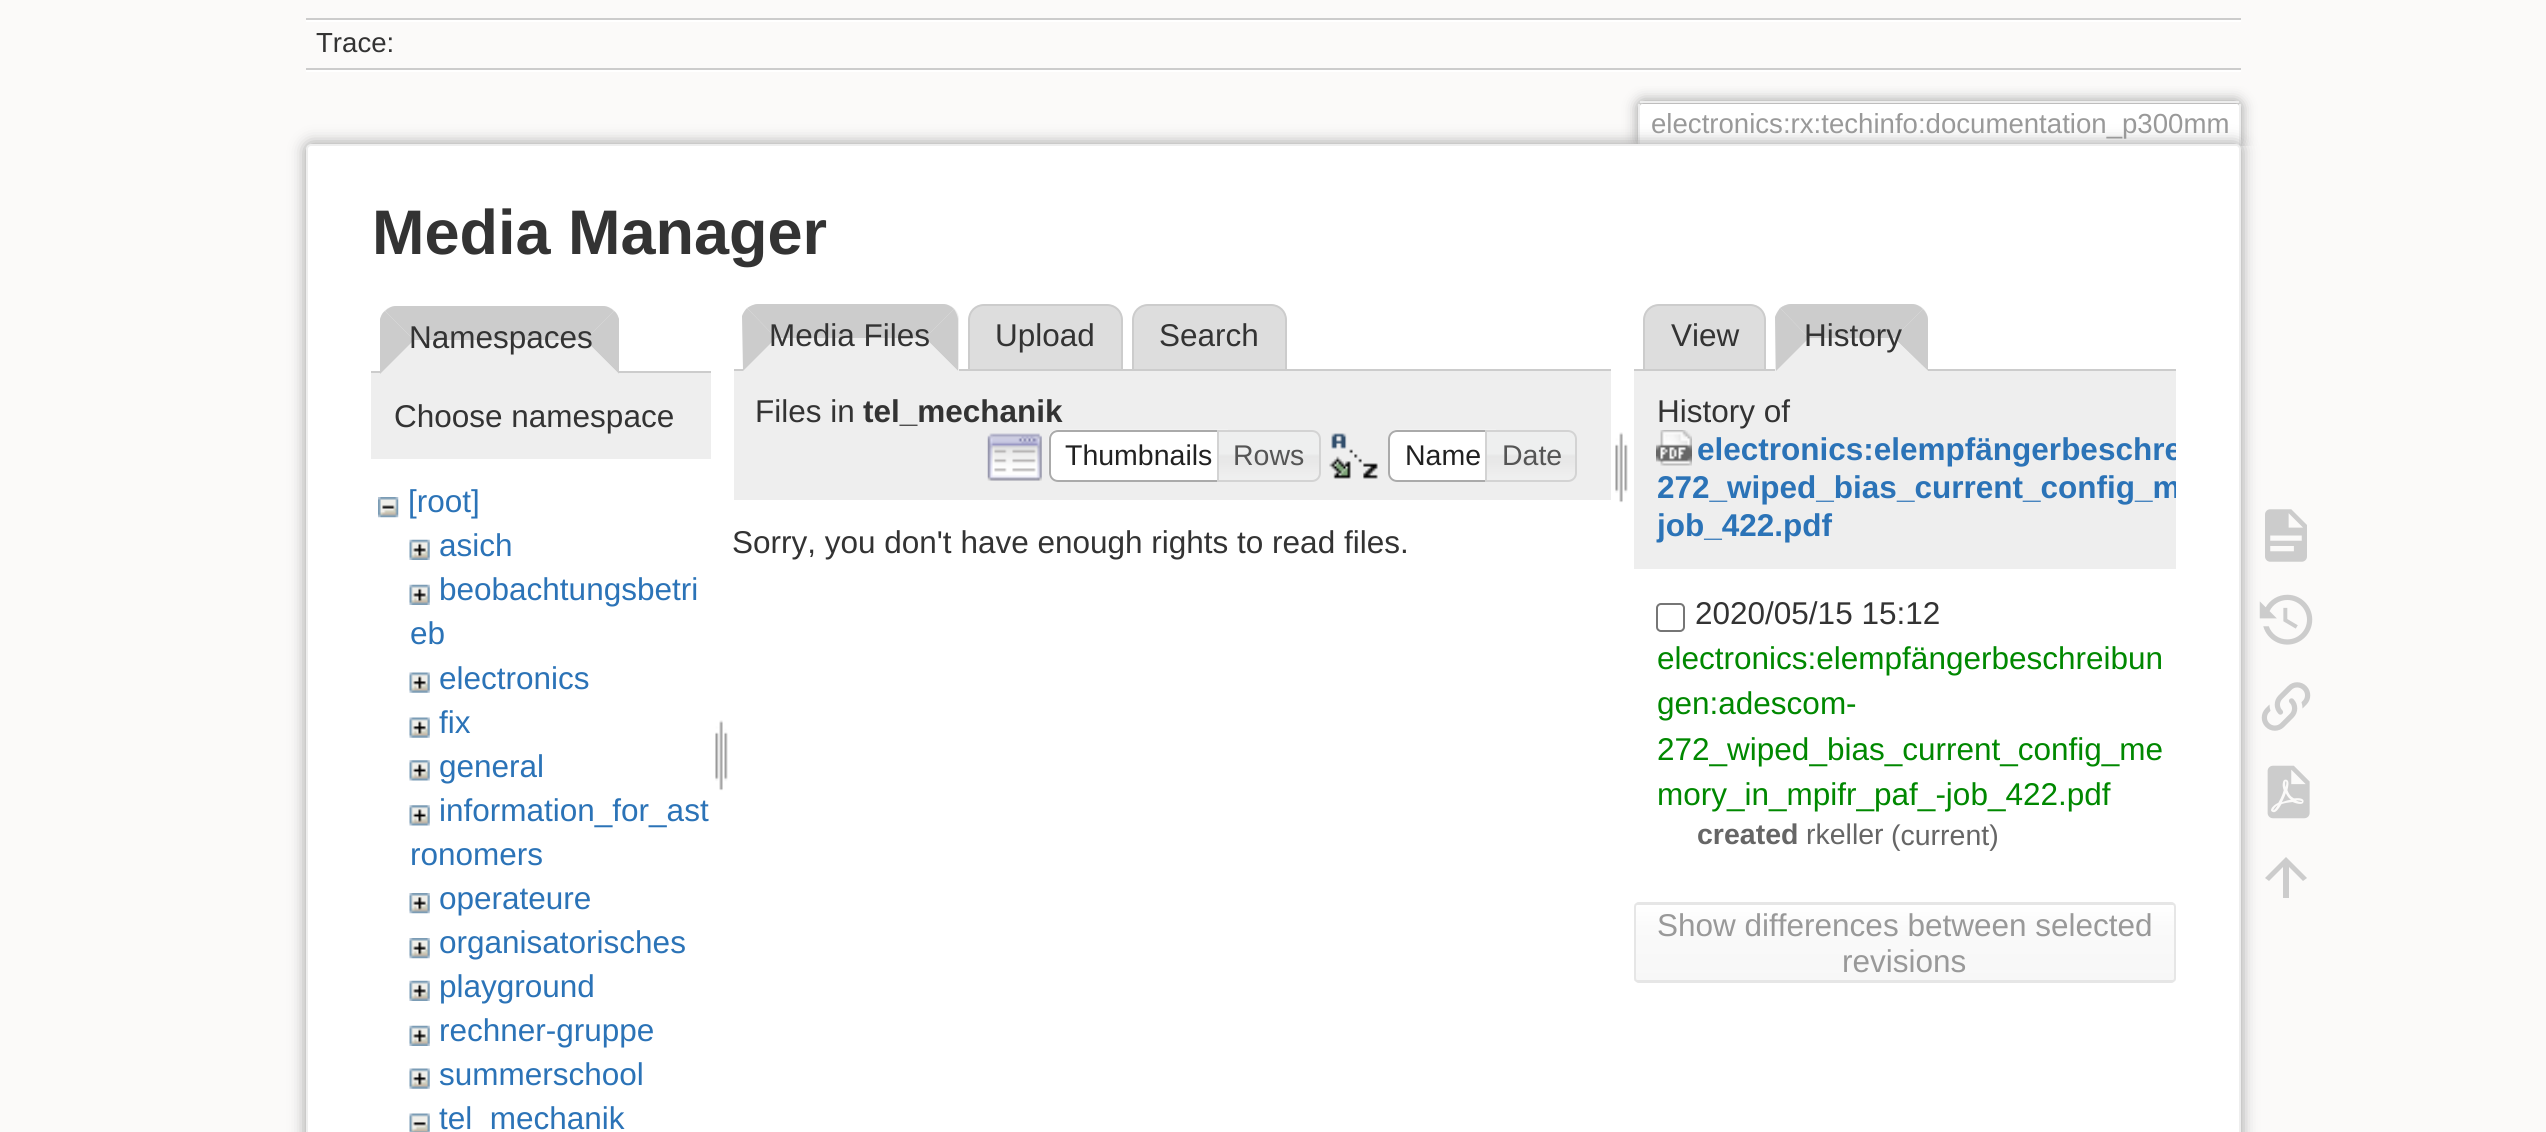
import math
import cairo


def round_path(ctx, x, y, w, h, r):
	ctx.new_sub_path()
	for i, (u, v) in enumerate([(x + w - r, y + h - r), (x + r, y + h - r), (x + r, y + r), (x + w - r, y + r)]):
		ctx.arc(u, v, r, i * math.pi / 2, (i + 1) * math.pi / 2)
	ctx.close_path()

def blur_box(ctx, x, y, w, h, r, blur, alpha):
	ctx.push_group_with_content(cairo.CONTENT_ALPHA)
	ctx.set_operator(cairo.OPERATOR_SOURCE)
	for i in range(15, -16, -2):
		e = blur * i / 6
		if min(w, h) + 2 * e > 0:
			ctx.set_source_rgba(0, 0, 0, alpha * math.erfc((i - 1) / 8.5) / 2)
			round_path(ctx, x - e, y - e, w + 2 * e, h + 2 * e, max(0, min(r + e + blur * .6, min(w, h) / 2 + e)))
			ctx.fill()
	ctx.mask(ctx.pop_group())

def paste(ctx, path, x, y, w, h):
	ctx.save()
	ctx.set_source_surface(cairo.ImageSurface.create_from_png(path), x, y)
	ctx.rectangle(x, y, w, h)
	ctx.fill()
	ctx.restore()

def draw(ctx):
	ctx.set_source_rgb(0.984, 0.98, 0.976)
	ctx.paint()
	ctx.set_source_rgb(0.8, 0.8, 0.8)
	ctx.rectangle(306, 18, 1935, 2)
	ctx.fill()
	ctx.set_source_rgb(1, 1, 1)
	ctx.rectangle(306, 70, 1935, 2)
	ctx.rectangle(306, 20, 1935, 2)
	ctx.fill()
	ctx.set_source_rgb(0.8, 0.8, 0.8)
	ctx.rectangle(306, 68, 1935, 2)
	ctx.fill()
	ctx.select_font_face('Liberation Sans')
	ctx.set_font_size(27.6)
	ctx.set_source_rgb(0.2, 0.2, 0.2)
	ctx.move_to(316, 52)
	ctx.show_text('Trace:')
	ctx.save()
	ctx.rectangle(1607, 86, 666, 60)
	ctx.clip()
	ctx.set_source_rgb(0.6, 0.6, 0.6)
	blur_box(ctx, 1638, 101, 603, 45, 5, 7, 1)
	ctx.restore()
	ctx.set_source_rgb(1, 1, 1)
	ctx.new_path()
	ctx.move_to(1642, 104)
	ctx.line_to(2237, 104)
	ctx.curve_to(2238, 104, 2239, 105, 2239, 106)
	ctx.line_to(2239, 146)
	ctx.line_to(1640, 146)
	ctx.line_to(1640, 106)
	ctx.curve_to(1640, 105, 1641, 104, 1642, 104)
	ctx.close_path()
	ctx.fill()
	ctx.set_source_rgb(0.933, 0.933, 0.933)
	ctx.rectangle(1640, 101, 599, 2)
	ctx.rectangle(2239, 104, 2, 42)
	ctx.rectangle(1638, 104, 2, 42)
	ctx.fill()
	ctx.set_source_rgb(0.6, 0.6, 0.6)
	ctx.move_to(1651, 133)
	ctx.show_text('electronics:rx:techinfo:documentation_p300mm')
	ctx.set_source_rgb(0.6, 0.6, 0.6)
	blur_box(ctx, 306, 144, 1935, 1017, 5, 8, 1)
	ctx.set_source_rgb(1, 1, 1)
	round_path(ctx, 307, 145, 1933, 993, 4)
	ctx.fill_preserve()
	ctx.set_source_rgb(0.933, 0.933, 0.933)
	ctx.stroke()
	ctx.select_font_face('Liberation Sans', cairo.FONT_SLANT_NORMAL, cairo.FONT_WEIGHT_BOLD)
	ctx.set_font_size(63)
	ctx.set_source_rgb(0.2, 0.2, 0.2)
	ctx.move_to(372, 254)
	ctx.show_text('Media Manager')
	ctx.set_source_rgb(0.933, 0.933, 0.933)
	ctx.rectangle(371, 373, 340, 86)
	ctx.fill()
	ctx.set_source_rgb(0.8, 0.8, 0.8)
	ctx.rectangle(371, 371, 340, 2)
	ctx.fill()
	ctx.set_source_rgb(0.933, 0.933, 0.933)
	ctx.new_path()
	ctx.move_to(396, 306)
	ctx.line_to(603, 306)
	ctx.curve_to(612, 306, 619, 313, 619, 322)
	ctx.line_to(619, 374)
	ctx.line_to(380, 374)
	ctx.line_to(380, 322)
	ctx.curve_to(380, 313, 387, 306, 396, 306)
	ctx.close_path()
	ctx.fill()
	ctx.set_source_rgb(0.8, 0.8, 0.8)
	ctx.new_path()
	ctx.move_to(396, 306)
	ctx.line_to(603, 306)
	ctx.curve_to(607, 306, 611, 308, 614, 311)
	ctx.line_to(585, 340)
	ctx.line_to(414, 340)
	ctx.line_to(385, 311)
	ctx.curve_to(388, 308, 392, 306, 396, 306)
	ctx.close_path()
	ctx.fill()
	ctx.new_path()
	ctx.move_to(614, 311)
	ctx.line_to(585, 340)
	ctx.line_to(619, 374)
	ctx.line_to(619, 319)
	ctx.curve_to(618, 316, 617, 313, 614, 311)
	ctx.close_path()
	ctx.fill()
	ctx.set_source_rgb(0.933, 0.933, 0.933)
	ctx.new_path()
	ctx.move_to(619, 374)
	ctx.line_to(585, 340)
	ctx.line_to(414, 340)
	ctx.line_to(380, 374)
	ctx.close_path()
	ctx.fill()
	ctx.set_source_rgb(0.8, 0.8, 0.8)
	ctx.new_path()
	ctx.move_to(380, 374)
	ctx.line_to(414, 340)
	ctx.line_to(385, 311)
	ctx.curve_to(382, 313, 381, 316, 380, 319)
	ctx.close_path()
	ctx.fill()
	ctx.select_font_face('Liberation Sans')
	ctx.set_font_size(31.5)
	ctx.set_source_rgb(0.2, 0.2, 0.2)
	ctx.move_to(409, 348)
	ctx.show_text('Namespaces')
	ctx.move_to(394, 427)
	ctx.show_text('Choose namespace')
	paste(ctx, 'media/1.png', 378, 497, 21, 21)
	ctx.set_source_rgb(0.169, 0.451, 0.718)
	ctx.move_to(408, 512)
	ctx.show_text('[root]')
	paste(ctx, 'media/2.png', 409, 539, 21, 21)
	ctx.move_to(439, 556)
	ctx.show_text('asich')
	paste(ctx, 'media/2.png', 409, 584, 21, 21)
	ctx.move_to(439, 600)
	ctx.show_text('beobachtungsbetri')
	ctx.move_to(410, 644)
	ctx.show_text('eb')
	paste(ctx, 'media/3.png', 409, 672, 21, 21)
	ctx.move_to(439, 689)
	ctx.show_text('electronics')
	paste(ctx, 'media/3.png', 409, 717, 21, 21)
	ctx.move_to(439, 733)
	ctx.show_text('fix')
	paste(ctx, 'media/4.png', 409, 760, 21, 21)
	ctx.move_to(439, 777)
	ctx.show_text('general')
	paste(ctx, 'media/4.png', 409, 805, 21, 21)
	ctx.move_to(439, 821)
	ctx.show_text('information_for_ast')
	ctx.move_to(410, 865)
	ctx.show_text('ronomers')
	paste(ctx, 'media/5.png', 409, 893, 21, 21)
	ctx.move_to(439, 909)
	ctx.show_text('operateure')
	paste(ctx, 'media/5.png', 409, 938, 21, 21)
	ctx.move_to(439, 953)
	ctx.show_text('organisatorisches')
	paste(ctx, 'media/2.png', 409, 980, 21, 21)
	ctx.move_to(439, 997)
	ctx.show_text('playground')
	paste(ctx, 'media/2.png', 409, 1025, 21, 21)
	ctx.move_to(439, 1041)
	ctx.show_text('rechner-gruppe')
	paste(ctx, 'media/3.png', 409, 1068, 21, 21)
	ctx.move_to(439, 1085)
	ctx.show_text('summerschool')
	paste(ctx, 'media/6.png', 409, 1113, 21, 19)
	ctx.move_to(439, 1129)
	ctx.show_text('tel_mechanik')
	paste(ctx, 'media/7.png', 715, 720, 13, 71)
	ctx.set_source_rgb(0.867, 0.867, 0.867)
	ctx.new_path()
	ctx.move_to(984, 305)
	ctx.line_to(1107, 305)
	ctx.curve_to(1115.5, 305, 1122, 311.5, 1122, 320)
	ctx.line_to(1122, 370)
	ctx.line_to(969, 370)
	ctx.line_to(969, 320)
	ctx.curve_to(969, 311.5, 975.5, 305, 984, 305)
	ctx.close_path()
	ctx.fill_preserve()
	ctx.set_source_rgb(0.8, 0.8, 0.8)
	ctx.stroke()
	ctx.set_source_rgb(0.867, 0.867, 0.867)
	ctx.new_path()
	ctx.move_to(1148, 305)
	ctx.line_to(1271, 305)
	ctx.curve_to(1279.5, 305, 1286, 311.5, 1286, 320)
	ctx.line_to(1286, 370)
	ctx.line_to(1133, 370)
	ctx.line_to(1133, 320)
	ctx.curve_to(1133, 311.5, 1139.5, 305, 1148, 305)
	ctx.close_path()
	ctx.fill_preserve()
	ctx.set_source_rgb(0.8, 0.8, 0.8)
	ctx.stroke()
	ctx.rectangle(734, 369, 877, 2)
	ctx.fill()
	ctx.set_source_rgb(0.933, 0.933, 0.933)
	ctx.new_path()
	ctx.move_to(759, 304)
	ctx.line_to(943, 304)
	ctx.curve_to(952, 304, 959, 311, 959, 320)
	ctx.line_to(959, 371)
	ctx.line_to(743, 371)
	ctx.line_to(743, 320)
	ctx.curve_to(743, 311, 750, 304, 759, 304)
	ctx.close_path()
	ctx.fill()
	ctx.set_source_rgb(0.8, 0.8, 0.8)
	ctx.new_path()
	ctx.move_to(758, 304)
	ctx.curve_to(754, 304, 750, 306, 747, 308)
	ctx.line_to(776, 338)
	ctx.line_to(925, 338)
	ctx.line_to(954, 309)
	ctx.curve_to(951, 306, 947, 304, 943, 304)
	ctx.close_path()
	ctx.fill()
	ctx.new_path()
	ctx.move_to(958, 371)
	ctx.line_to(958, 320)
	ctx.curve_to(958, 316, 956, 312, 954, 309)
	ctx.line_to(925, 338)
	ctx.close_path()
	ctx.fill()
	ctx.set_source_rgb(0.933, 0.933, 0.933)
	ctx.new_path()
	ctx.move_to(958, 371)
	ctx.line_to(925, 338)
	ctx.line_to(776, 338)
	ctx.line_to(743, 371)
	ctx.close_path()
	ctx.fill()
	ctx.set_source_rgb(0.8, 0.8, 0.8)
	ctx.new_path()
	ctx.move_to(742, 316)
	ctx.curve_to(743, 313, 745, 310, 747, 308)
	ctx.line_to(776, 338)
	ctx.line_to(743, 371)
	ctx.close_path()
	ctx.fill()
	ctx.set_source_rgb(0.2, 0.2, 0.2)
	for x, y, s in [
		(769, 346, 'Media Files'),
		(995, 346, 'Upload'),
		(1159, 346, 'Search'),
	]:
		ctx.move_to(x, y)
		ctx.show_text(s)
	ctx.set_source_rgb(0.933, 0.933, 0.933)
	ctx.rectangle(734, 371, 877, 129)
	ctx.fill()
	ctx.set_source_rgb(0.2, 0.2, 0.2)
	ctx.move_to(755, 422)
	ctx.show_text('Files in')
	ctx.select_font_face('Liberation Sans', cairo.FONT_SLANT_NORMAL, cairo.FONT_WEIGHT_BOLD)
	ctx.move_to(863, 422)
	ctx.show_text('tel_mechanik')
	paste(ctx, 'media/8.png', 987, 433, 55, 48)
	ctx.set_source_rgb(1, 1, 1)
	ctx.new_path()
	ctx.move_to(1058, 430)
	ctx.line_to(1229, 430)
	ctx.line_to(1229, 482)
	ctx.line_to(1058, 482)
	ctx.curve_to(1053, 482, 1049, 478, 1049, 473)
	ctx.line_to(1049, 439)
	ctx.curve_to(1049, 434, 1053, 430, 1058, 430)
	ctx.close_path()
	ctx.fill()
	paste(ctx, 'media/9.png', 1048, 429, 180, 48)
	ctx.new_path()
	ctx.move_to(1058, 431)
	ctx.line_to(1228, 431)
	ctx.line_to(1228, 481)
	ctx.line_to(1058, 481)
	ctx.curve_to(1053.5, 481, 1050, 477.5, 1050, 473)
	ctx.line_to(1050, 439)
	ctx.curve_to(1050, 434.5, 1053.5, 431, 1058, 431)
	ctx.close_path()
	ctx.set_source_rgb(0.667, 0.667, 0.667)
	ctx.stroke()
	ctx.select_font_face('Liberation Sans')
	ctx.set_font_size(28.5)
	ctx.set_source_rgb(0.129, 0.129, 0.129)
	ctx.move_to(1065, 465)
	ctx.show_text('Thumbnails')
	paste(ctx, 'media/10.png', 1219, 430, 102, 50)
	ctx.new_path()
	ctx.move_to(1218, 431)
	ctx.line_to(1312, 431)
	ctx.curve_to(1316.5, 431, 1320, 434.5, 1320, 439)
	ctx.line_to(1320, 473)
	ctx.curve_to(1320, 477.5, 1316.5, 481, 1312, 481)
	ctx.line_to(1218, 481)
	ctx.close_path()
	ctx.set_source_rgb(0.827, 0.827, 0.827)
	ctx.stroke()
	ctx.set_source_rgb(0.333, 0.333, 0.333)
	ctx.move_to(1233, 465)
	ctx.show_text('Rows')
	paste(ctx, 'media/11.png', 1329, 433, 49, 46)
	ctx.set_source_rgb(1, 1, 1)
	ctx.new_path()
	ctx.move_to(1397, 430)
	ctx.line_to(1496, 430)
	ctx.line_to(1496, 482)
	ctx.line_to(1397, 482)
	ctx.curve_to(1392, 482, 1388, 478, 1388, 473)
	ctx.line_to(1388, 439)
	ctx.curve_to(1388, 434, 1392, 430, 1397, 430)
	ctx.close_path()
	ctx.fill()
	paste(ctx, 'media/12.png', 1390, 429, 106, 4)
	ctx.new_path()
	ctx.move_to(1397, 431)
	ctx.line_to(1495, 431)
	ctx.line_to(1495, 481)
	ctx.line_to(1397, 481)
	ctx.curve_to(1392.5, 481, 1389, 477.5, 1389, 473)
	ctx.line_to(1389, 439)
	ctx.curve_to(1389, 434.5, 1392.5, 431, 1397, 431)
	ctx.close_path()
	ctx.set_source_rgb(0.667, 0.667, 0.667)
	ctx.stroke()
	ctx.set_source_rgb(0.129, 0.129, 0.129)
	ctx.move_to(1405, 465)
	ctx.show_text('Name')
	paste(ctx, 'media/13.png', 1487, 430, 90, 51)
	ctx.new_path()
	ctx.move_to(1486, 431)
	ctx.line_to(1568, 431)
	ctx.curve_to(1572.5, 431, 1576, 434.5, 1576, 439)
	ctx.line_to(1576, 473)
	ctx.curve_to(1576, 477.5, 1572.5, 481, 1568, 481)
	ctx.line_to(1486, 481)
	ctx.close_path()
	ctx.set_source_rgb(0.827, 0.827, 0.827)
	ctx.stroke()
	ctx.set_source_rgb(0.333, 0.333, 0.333)
	ctx.move_to(1502, 465)
	ctx.show_text('Date')
	paste(ctx, 'media/7.png', 1615, 432, 13, 71)
	ctx.set_font_size(31.5)
	ctx.set_source_rgb(0.2, 0.2, 0.2)
	ctx.move_to(732, 553)
	ctx.show_text('Sorry, you don\'t have enough rights to read files.')
	ctx.set_source_rgb(0.867, 0.867, 0.867)
	ctx.new_path()
	ctx.move_to(1659, 305)
	ctx.line_to(1750, 305)
	ctx.curve_to(1758.5, 305, 1765, 311.5, 1765, 320)
	ctx.line_to(1765, 370)
	ctx.line_to(1644, 370)
	ctx.line_to(1644, 320)
	ctx.curve_to(1644, 311.5, 1650.5, 305, 1659, 305)
	ctx.close_path()
	ctx.fill_preserve()
	ctx.set_source_rgb(0.8, 0.8, 0.8)
	ctx.stroke()
	ctx.set_source_rgb(0.2, 0.2, 0.2)
	ctx.move_to(1671, 346)
	ctx.show_text('View')
	ctx.set_source_rgb(0.8, 0.8, 0.8)
	ctx.rectangle(1634, 369, 542, 2)
	ctx.fill()
	ctx.set_source_rgb(0.933, 0.933, 0.933)
	ctx.new_path()
	ctx.move_to(1791, 304)
	ctx.line_to(1912, 304)
	ctx.curve_to(1921, 304, 1928, 311, 1928, 320)
	ctx.line_to(1928, 371)
	ctx.line_to(1775, 371)
	ctx.line_to(1775, 320)
	ctx.curve_to(1775, 311, 1782, 304, 1791, 304)
	ctx.close_path()
	ctx.fill()
	ctx.set_source_rgb(0.8, 0.8, 0.8)
	ctx.new_path()
	ctx.move_to(1791, 304)
	ctx.curve_to(1787, 304, 1783, 306, 1780, 308)
	ctx.line_to(1809, 338)
	ctx.line_to(1894, 338)
	ctx.line_to(1923, 309)
	ctx.curve_to(1920, 306, 1916, 304, 1912, 304)
	ctx.close_path()
	ctx.fill()
	ctx.new_path()
	ctx.move_to(1928, 371)
	ctx.line_to(1928, 320)
	ctx.curve_to(1928, 316, 1926, 312, 1923, 309)
	ctx.line_to(1894, 338)
	ctx.close_path()
	ctx.fill()
	ctx.set_source_rgb(0.933, 0.933, 0.933)
	ctx.new_path()
	ctx.move_to(1928, 371)
	ctx.line_to(1894, 338)
	ctx.line_to(1809, 338)
	ctx.line_to(1776, 371)
	ctx.close_path()
	ctx.fill()
	ctx.set_source_rgb(0.8, 0.8, 0.8)
	ctx.new_path()
	ctx.move_to(1775, 317)
	ctx.curve_to(1776, 314, 1778, 311, 1780, 308)
	ctx.line_to(1809, 338)
	ctx.line_to(1776, 371)
	ctx.close_path()
	ctx.fill()
	ctx.set_source_rgb(0.2, 0.2, 0.2)
	ctx.move_to(1804, 346)
	ctx.show_text('History')
	ctx.set_source_rgb(0.933, 0.933, 0.933)
	ctx.rectangle(1634, 371, 542, 198)
	ctx.fill()
	ctx.set_source_rgb(0.2, 0.2, 0.2)
	ctx.move_to(1657, 422)
	ctx.show_text('History of')
	paste(ctx, 'media/14.png', 1656, 430, 36, 36)
	ctx.save()
	ctx.rectangle(1634, 371, 542, 198)
	ctx.clip()
	ctx.select_font_face('Liberation Sans', cairo.FONT_SLANT_NORMAL, cairo.FONT_WEIGHT_BOLD)
	ctx.set_source_rgb(0.169, 0.451, 0.718)
	ctx.move_to(1697, 460)
	ctx.show_text('electronics:elempfängerbeschre')
	ctx.move_to(1657, 498)
	ctx.show_text('272_wiped_bias_current_config_m')
	ctx.restore()
	ctx.select_font_face('Liberation Sans', cairo.FONT_SLANT_NORMAL, cairo.FONT_WEIGHT_BOLD)
	ctx.set_source_rgb(0.169, 0.451, 0.718)
	ctx.move_to(1657, 536)
	ctx.show_text('job_422.pdf')
	round_path(ctx, 1657, 604, 27, 27, 4)
	ctx.set_source_rgb(0.463, 0.463, 0.463)
	ctx.stroke()
	ctx.select_font_face('Liberation Sans')
	ctx.set_source_rgb(0.2, 0.2, 0.2)
	ctx.move_to(1695, 624)
	ctx.show_text('2020/05/15 15:12')
	ctx.set_source_rgb(0, 0.533, 0)
	for x, y, s in [
		(1657, 669, 'electronics:elempfängerbeschreibun'),
		(1657, 714, 'gen:adescom-'),
		(1657, 760, '272_wiped_bias_current_config_me'),
		(1657, 805, 'mory_in_mpifr_paf_-job_422.pdf'),
	]:
		ctx.move_to(x, y)
		ctx.show_text(s)
	ctx.select_font_face('Liberation Sans', cairo.FONT_SLANT_NORMAL, cairo.FONT_WEIGHT_BOLD)
	ctx.set_font_size(28.5)
	ctx.set_source_rgb(0.4, 0.4, 0.4)
	ctx.move_to(1697, 844)
	ctx.show_text('created')
	ctx.select_font_face('Liberation Sans')
	ctx.move_to(1806, 844)
	ctx.show_text('rkeller')
	ctx.move_to(1891, 845)
	ctx.show_text('(current)')
	ctx.save()
	round_path(ctx, 1634, 902, 542, 81, 5)
	ctx.clip()
	gradient = cairo.LinearGradient(1905, 828, 1905, 905)
	gradient.add_color_stop_rgba(0, 1, 1, 1, 1)
	gradient.add_color_stop_rgba(0.3, 0.98, 0.98, 0.98, 1)
	gradient.add_color_stop_rgba(0.99, 0.969, 0.969, 0.969, 1)
	gradient.add_color_stop_rgba(0.99, 0.902, 0.902, 0.902, 1)
	ctx.set_source(gradient)
	ctx.rectangle(1634, 902, 542, 3)
	ctx.fill()
	gradient = cairo.LinearGradient(1905, 905, 1905, 981)
	gradient.add_color_stop_rgba(0, 1, 1, 1, 1)
	gradient.add_color_stop_rgba(0.3, 0.98, 0.98, 0.98, 1)
	gradient.add_color_stop_rgba(0.99, 0.969, 0.969, 0.969, 1)
	gradient.add_color_stop_rgba(0.99, 0.902, 0.902, 0.902, 1)
	ctx.set_source(gradient)
	ctx.rectangle(1634, 905, 542, 76)
	ctx.fill()
	ctx.restore()
	round_path(ctx, 1635, 903, 540, 79, 4)
	ctx.set_source_rgb(0.902, 0.902, 0.902)
	ctx.stroke()
	ctx.set_font_size(31.5)
	ctx.set_source_rgb(0.6, 0.6, 0.6)
	ctx.move_to(1657, 936)
	ctx.show_text('Show differences between selected')
	ctx.move_to(1842, 972)
	ctx.show_text('revisions')
	paste(ctx, 'media/15.png', 2265, 509, 42, 53)
	paste(ctx, 'media/16.png', 2259, 594, 54, 51)
	paste(ctx, 'media/17.png', 2261, 682, 50, 49)
	paste(ctx, 'media/18.png', 2267, 765, 43, 54)
	ctx.set_source_rgb(0.8, 0.8, 0.8)
	ctx.new_path()
	ctx.move_to(2289, 898)
	ctx.line_to(2283, 898)
	ctx.line_to(2283, 867)
	ctx.line_to(2269, 881)
	ctx.line_to(2265, 878)
	ctx.line_to(2286, 857)
	ctx.line_to(2307, 878)
	ctx.line_to(2303, 881)
	ctx.line_to(2289, 867)
	ctx.close_path()
	ctx.fill()


surface = cairo.ImageSurface(cairo.FORMAT_RGB24, 2546, 1132)
ctx = cairo.Context(surface)
options = cairo.FontOptions()
options.set_hint_metrics(cairo.HINT_METRICS_OFF)
options.set_hint_style(cairo.HINT_STYLE_NONE)
ctx.set_font_options(options)
ctx.set_miter_limit(4)
draw(ctx)
surface.write_to_png('image.png')
